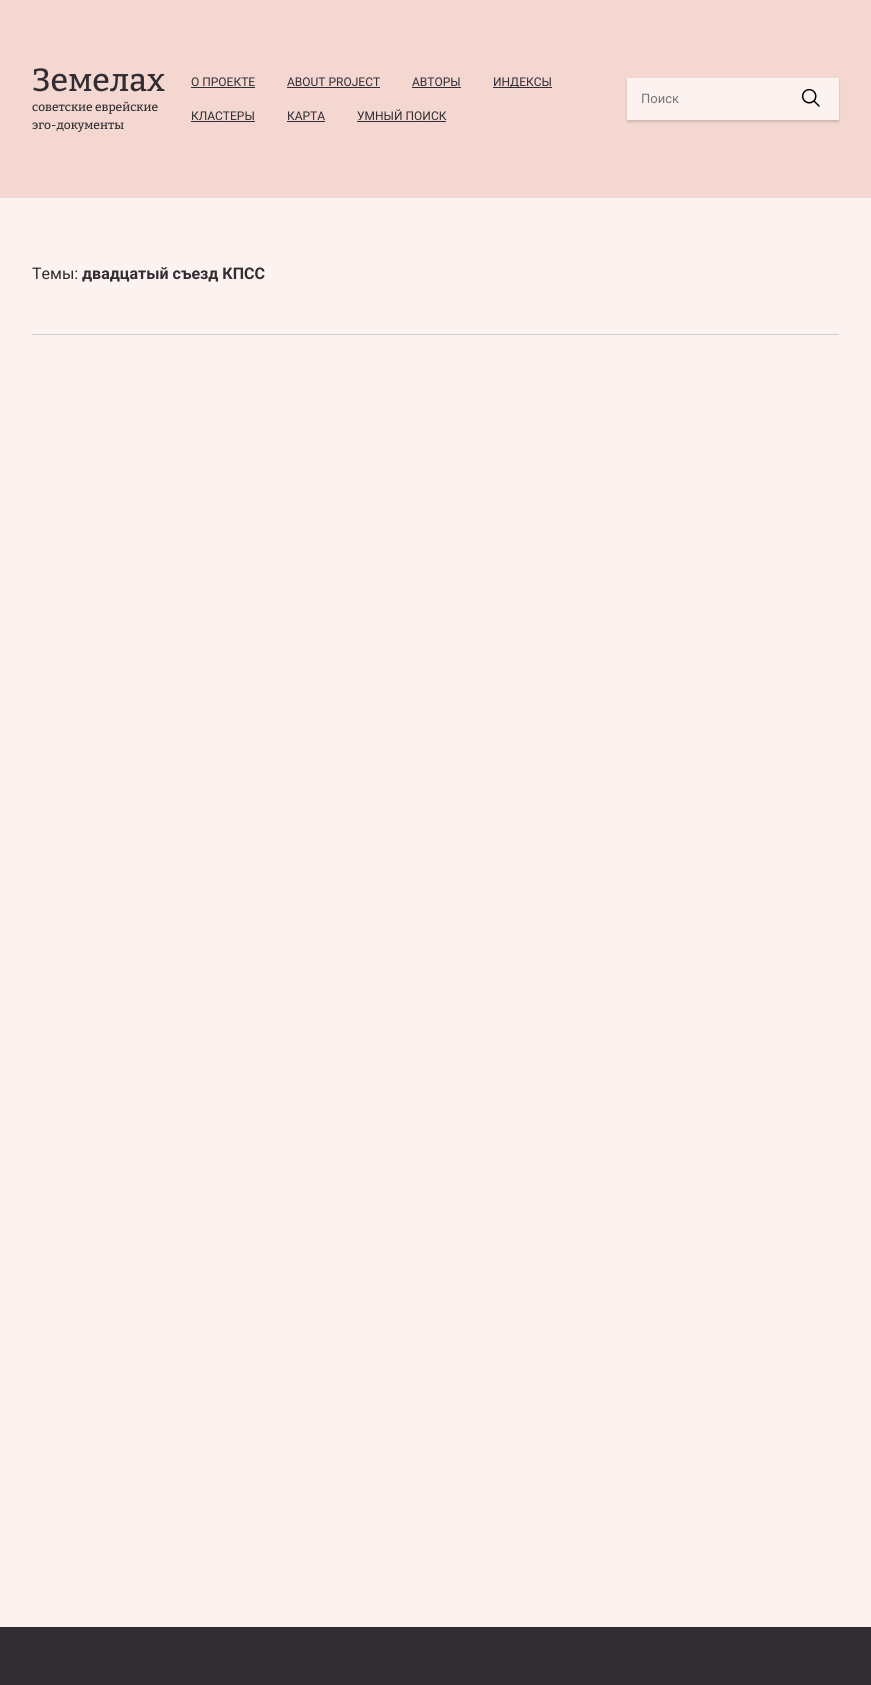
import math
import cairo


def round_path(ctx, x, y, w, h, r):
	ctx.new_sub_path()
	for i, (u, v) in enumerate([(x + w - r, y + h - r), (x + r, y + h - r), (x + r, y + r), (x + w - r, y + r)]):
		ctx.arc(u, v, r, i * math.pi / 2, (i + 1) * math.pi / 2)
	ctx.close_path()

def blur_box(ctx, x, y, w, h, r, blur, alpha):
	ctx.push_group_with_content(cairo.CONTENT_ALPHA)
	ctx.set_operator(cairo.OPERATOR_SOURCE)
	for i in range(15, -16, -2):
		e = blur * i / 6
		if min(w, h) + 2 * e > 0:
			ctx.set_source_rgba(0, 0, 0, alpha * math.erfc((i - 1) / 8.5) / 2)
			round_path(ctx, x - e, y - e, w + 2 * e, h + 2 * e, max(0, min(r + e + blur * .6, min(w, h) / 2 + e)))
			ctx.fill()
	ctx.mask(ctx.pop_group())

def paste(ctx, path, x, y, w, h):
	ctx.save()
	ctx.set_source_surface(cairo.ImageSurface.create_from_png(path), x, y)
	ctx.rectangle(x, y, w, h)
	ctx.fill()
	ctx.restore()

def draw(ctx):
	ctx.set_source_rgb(0.988, 0.953, 0.945)
	ctx.paint()
	ctx.set_source_rgb(0.953, 0.843, 0.816)
	ctx.rectangle(0, 0, 871, 198)
	ctx.fill()
	ctx.select_font_face('Bitter Medium')
	ctx.set_font_size(32)
	ctx.set_source_rgb(0.192, 0.176, 0.196)
	ctx.move_to(32, 91)
	ctx.show_text('Земелах')
	ctx.set_font_size(12)
	ctx.move_to(32, 111)
	ctx.show_text('советские еврейские')
	ctx.move_to(32, 129)
	ctx.show_text('эго-документы')
	ctx.select_font_face('Roboto')
	ctx.move_to(191, 86)
	ctx.show_text('О ПРОЕКТЕ')
	ctx.rectangle(191, 87, 64, 1)
	ctx.fill()
	ctx.move_to(287, 86)
	ctx.show_text('ABOUT PROJECT')
	ctx.rectangle(287, 87, 93, 1)
	ctx.fill()
	ctx.move_to(412, 86)
	ctx.show_text('АВТОРЫ')
	ctx.rectangle(412, 87, 49, 1)
	ctx.fill()
	ctx.rectangle(493, 87, 59, 1)
	ctx.fill()
	ctx.move_to(493, 86)
	ctx.show_text('ИНДЕКСЫ')
	ctx.move_to(191, 120)
	ctx.show_text('КЛАСТЕРЫ')
	ctx.rectangle(191, 121, 64, 1)
	ctx.fill()
	ctx.move_to(287, 120)
	ctx.show_text('КАРТА')
	ctx.rectangle(287, 121, 38, 1)
	ctx.fill()
	ctx.move_to(357, 120)
	ctx.show_text('УМНЫЙ ПОИСК')
	ctx.rectangle(357, 121, 89, 1)
	ctx.fill()
	ctx.set_source_rgb(0, 0, 0)
	blur_box(ctx, 627, 80, 212, 42, 0, 1, 0.15)
	ctx.set_source_rgb(0.988, 0.953, 0.945)
	ctx.rectangle(627, 78, 212, 42)
	ctx.fill()
	ctx.set_font_size(13)
	ctx.set_source_rgb(0.459, 0.459, 0.459)
	ctx.move_to(641, 103)
	ctx.show_text('Поиск')
	paste(ctx, 'media/1.png', 801, 88, 19, 19)
	ctx.set_source_rgb(0.8, 0.8, 0.8)
	ctx.rectangle(32, 334, 807, 1)
	ctx.fill()
	ctx.set_font_size(16)
	ctx.set_source_rgb(0.192, 0.176, 0.196)
	ctx.move_to(32, 279)
	ctx.show_text('Темы:')
	ctx.select_font_face('Roboto', cairo.FONT_SLANT_NORMAL, cairo.FONT_WEIGHT_BOLD)
	ctx.move_to(82, 279)
	ctx.show_text('двадцатый съезд КПСС')
	ctx.rectangle(0, 1627, 871, 58)
	ctx.fill()


surface = cairo.ImageSurface(cairo.FORMAT_RGB24, 871, 1685)
ctx = cairo.Context(surface)
options = cairo.FontOptions()
options.set_hint_metrics(cairo.HINT_METRICS_OFF)
options.set_hint_style(cairo.HINT_STYLE_NONE)
ctx.set_font_options(options)
ctx.set_miter_limit(4)
draw(ctx)
surface.write_to_png('image.png')
